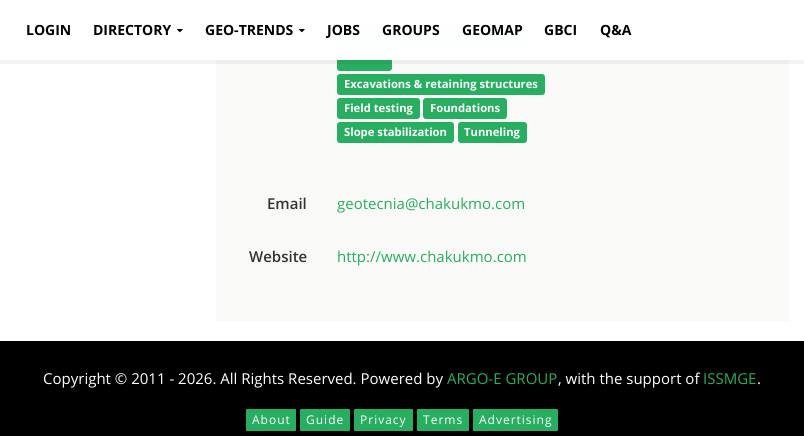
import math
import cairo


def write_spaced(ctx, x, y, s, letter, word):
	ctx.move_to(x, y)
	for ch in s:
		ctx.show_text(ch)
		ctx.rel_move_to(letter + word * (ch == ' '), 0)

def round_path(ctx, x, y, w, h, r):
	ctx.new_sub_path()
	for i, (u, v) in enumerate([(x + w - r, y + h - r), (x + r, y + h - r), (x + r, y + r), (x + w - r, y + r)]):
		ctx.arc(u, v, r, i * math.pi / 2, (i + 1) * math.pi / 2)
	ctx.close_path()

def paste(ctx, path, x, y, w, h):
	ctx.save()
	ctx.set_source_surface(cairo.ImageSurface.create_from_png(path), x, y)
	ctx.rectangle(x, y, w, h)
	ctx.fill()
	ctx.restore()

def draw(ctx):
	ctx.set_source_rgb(1, 1, 1)
	ctx.paint()
	ctx.set_source_rgb(0.973, 0.973, 0.969)
	ctx.rectangle(216, 0, 573, 321)
	ctx.fill()
	ctx.set_source_rgb(0.153, 0.682, 0.376)
	round_path(ctx, 337, 50, 55, 21, 3)
	ctx.fill()
	ctx.set_source_rgba(0, 0, 0, 0.05)
	ctx.rectangle(0, 60, 804, 4)
	ctx.fill()
	ctx.set_source_rgb(0.153, 0.682, 0.376)
	round_path(ctx, 337, 26, 189, 21, 3)
	ctx.fill()
	ctx.set_source_rgba(1, 1, 1, 0.99)
	ctx.rectangle(216, 0, 573, 60)
	ctx.fill()
	ctx.select_font_face('Open Sans', cairo.FONT_SLANT_NORMAL, cairo.FONT_WEIGHT_BOLD)
	ctx.set_font_size(14)
	ctx.set_source_rgb(0, 0, 0)
	ctx.move_to(26, 35)
	ctx.show_text('LOGIN')
	ctx.move_to(93, 35)
	ctx.show_text('DIRECTORY')
	paste(ctx, 'media/1.png', 177, 29, 6, 4)
	ctx.move_to(205, 35)
	ctx.show_text('GEO-TRENDS')
	paste(ctx, 'media/2.png', 299, 29, 6, 4)
	for x, y, s in [
		(327, 35, 'JOBS'),
		(382, 35, 'GROUPS'),
		(462, 35, 'GEOMAP'),
		(544, 35, 'GBCI'),
		(600, 35, 'Q&A'),
	]:
		ctx.move_to(x, y)
		ctx.show_text(s)
	ctx.set_source_rgb(0.153, 0.682, 0.376)
	round_path(ctx, 337, 74, 208, 21, 3)
	ctx.fill()
	ctx.set_font_size(11.25)
	ctx.set_source_rgb(1, 1, 1)
	ctx.move_to(344, 88)
	ctx.show_text('Excavations & retaining structures')
	ctx.set_source_rgb(0.153, 0.682, 0.376)
	round_path(ctx, 337, 98, 83, 21, 3)
	ctx.fill()
	ctx.set_source_rgb(1, 1, 1)
	ctx.move_to(344, 112)
	ctx.show_text('Field testing')
	ctx.set_source_rgb(0.153, 0.682, 0.376)
	round_path(ctx, 423, 98, 84, 21, 3)
	ctx.fill()
	ctx.set_source_rgb(1, 1, 1)
	ctx.move_to(430, 112)
	ctx.show_text('Foundations')
	ctx.set_source_rgb(0.153, 0.682, 0.376)
	round_path(ctx, 337, 122, 117, 21, 3)
	ctx.fill()
	ctx.set_source_rgb(1, 1, 1)
	ctx.move_to(344, 136)
	ctx.show_text('Slope stabilization')
	ctx.set_source_rgb(0.153, 0.682, 0.376)
	round_path(ctx, 458, 122, 69, 21, 3)
	ctx.fill()
	ctx.set_source_rgb(1, 1, 1)
	ctx.move_to(464, 136)
	ctx.show_text('Tunneling')
	ctx.select_font_face('Open Sans SemiBold')
	ctx.set_font_size(15)
	ctx.set_source_rgb(0.2, 0.2, 0.2)
	ctx.move_to(267, 209)
	ctx.show_text('Email')
	ctx.select_font_face('Open Sans')
	ctx.set_source_rgb(0.153, 0.682, 0.376)
	ctx.move_to(337, 209)
	ctx.show_text('geotecnia@chakukmo.com')
	ctx.select_font_face('Open Sans SemiBold')
	ctx.set_source_rgb(0.2, 0.2, 0.2)
	ctx.move_to(249, 262)
	ctx.show_text('Website')
	ctx.select_font_face('Open Sans')
	ctx.set_source_rgb(0.153, 0.682, 0.376)
	ctx.move_to(337, 262)
	ctx.show_text('http://www.chakukmo.com')
	ctx.set_source_rgb(0, 0, 0)
	ctx.rectangle(0, 341, 804, 95)
	ctx.fill()
	ctx.set_source_rgb(1, 1, 1)
	ctx.move_to(43, 384)
	ctx.show_text('Copyright © 2011 - 2026. All Rights Reserved. Powered by')
	ctx.set_source_rgb(0.153, 0.682, 0.376)
	ctx.move_to(447, 384)
	ctx.show_text('ARGO-E GROUP')
	ctx.set_source_rgb(1, 1, 1)
	ctx.move_to(558, 384)
	ctx.show_text(', with the support of')
	ctx.set_source_rgb(0.153, 0.682, 0.376)
	ctx.move_to(703, 384)
	ctx.show_text('ISSMGE')
	ctx.set_source_rgb(1, 1, 1)
	ctx.move_to(757, 384)
	ctx.show_text('.')
	ctx.set_source_rgb(0.153, 0.682, 0.376)
	round_path(ctx, 246.5, 409.5, 49, 21, 0.5)
	ctx.fill_preserve()
	ctx.set_line_width(1)
	ctx.stroke()
	ctx.set_font_size(12)
	ctx.set_source_rgb(1, 1, 1)
	write_spaced(ctx, 252, 424, 'About', 1, 0)
	ctx.set_source_rgb(0.153, 0.682, 0.376)
	round_path(ctx, 300.5, 409.5, 49, 21, 0.5)
	ctx.fill_preserve()
	ctx.stroke()
	ctx.set_source_rgb(1, 1, 1)
	write_spaced(ctx, 306, 424, 'Guide', 1, 0)
	ctx.set_source_rgb(0.153, 0.682, 0.376)
	round_path(ctx, 354.5, 409.5, 58, 21, 0.5)
	ctx.fill_preserve()
	ctx.stroke()
	ctx.set_source_rgb(1, 1, 1)
	write_spaced(ctx, 360, 424, 'Privacy', 1, 0)
	ctx.set_source_rgb(0.153, 0.682, 0.376)
	round_path(ctx, 417.5, 409.5, 51, 21, 0.5)
	ctx.fill_preserve()
	ctx.stroke()
	ctx.set_source_rgb(1, 1, 1)
	write_spaced(ctx, 423, 424, 'Terms', 1, 0)
	ctx.set_source_rgb(0.153, 0.682, 0.376)
	round_path(ctx, 473.5, 409.5, 84, 21, 0.5)
	ctx.fill_preserve()
	ctx.stroke()
	ctx.set_source_rgb(1, 1, 1)
	write_spaced(ctx, 479, 424, 'Advertising', 1, 0)


surface = cairo.ImageSurface(cairo.FORMAT_RGB24, 804, 436)
ctx = cairo.Context(surface)
options = cairo.FontOptions()
options.set_hint_metrics(cairo.HINT_METRICS_OFF)
options.set_hint_style(cairo.HINT_STYLE_NONE)
ctx.set_font_options(options)
ctx.set_miter_limit(4)
draw(ctx)
surface.write_to_png('image.png')
